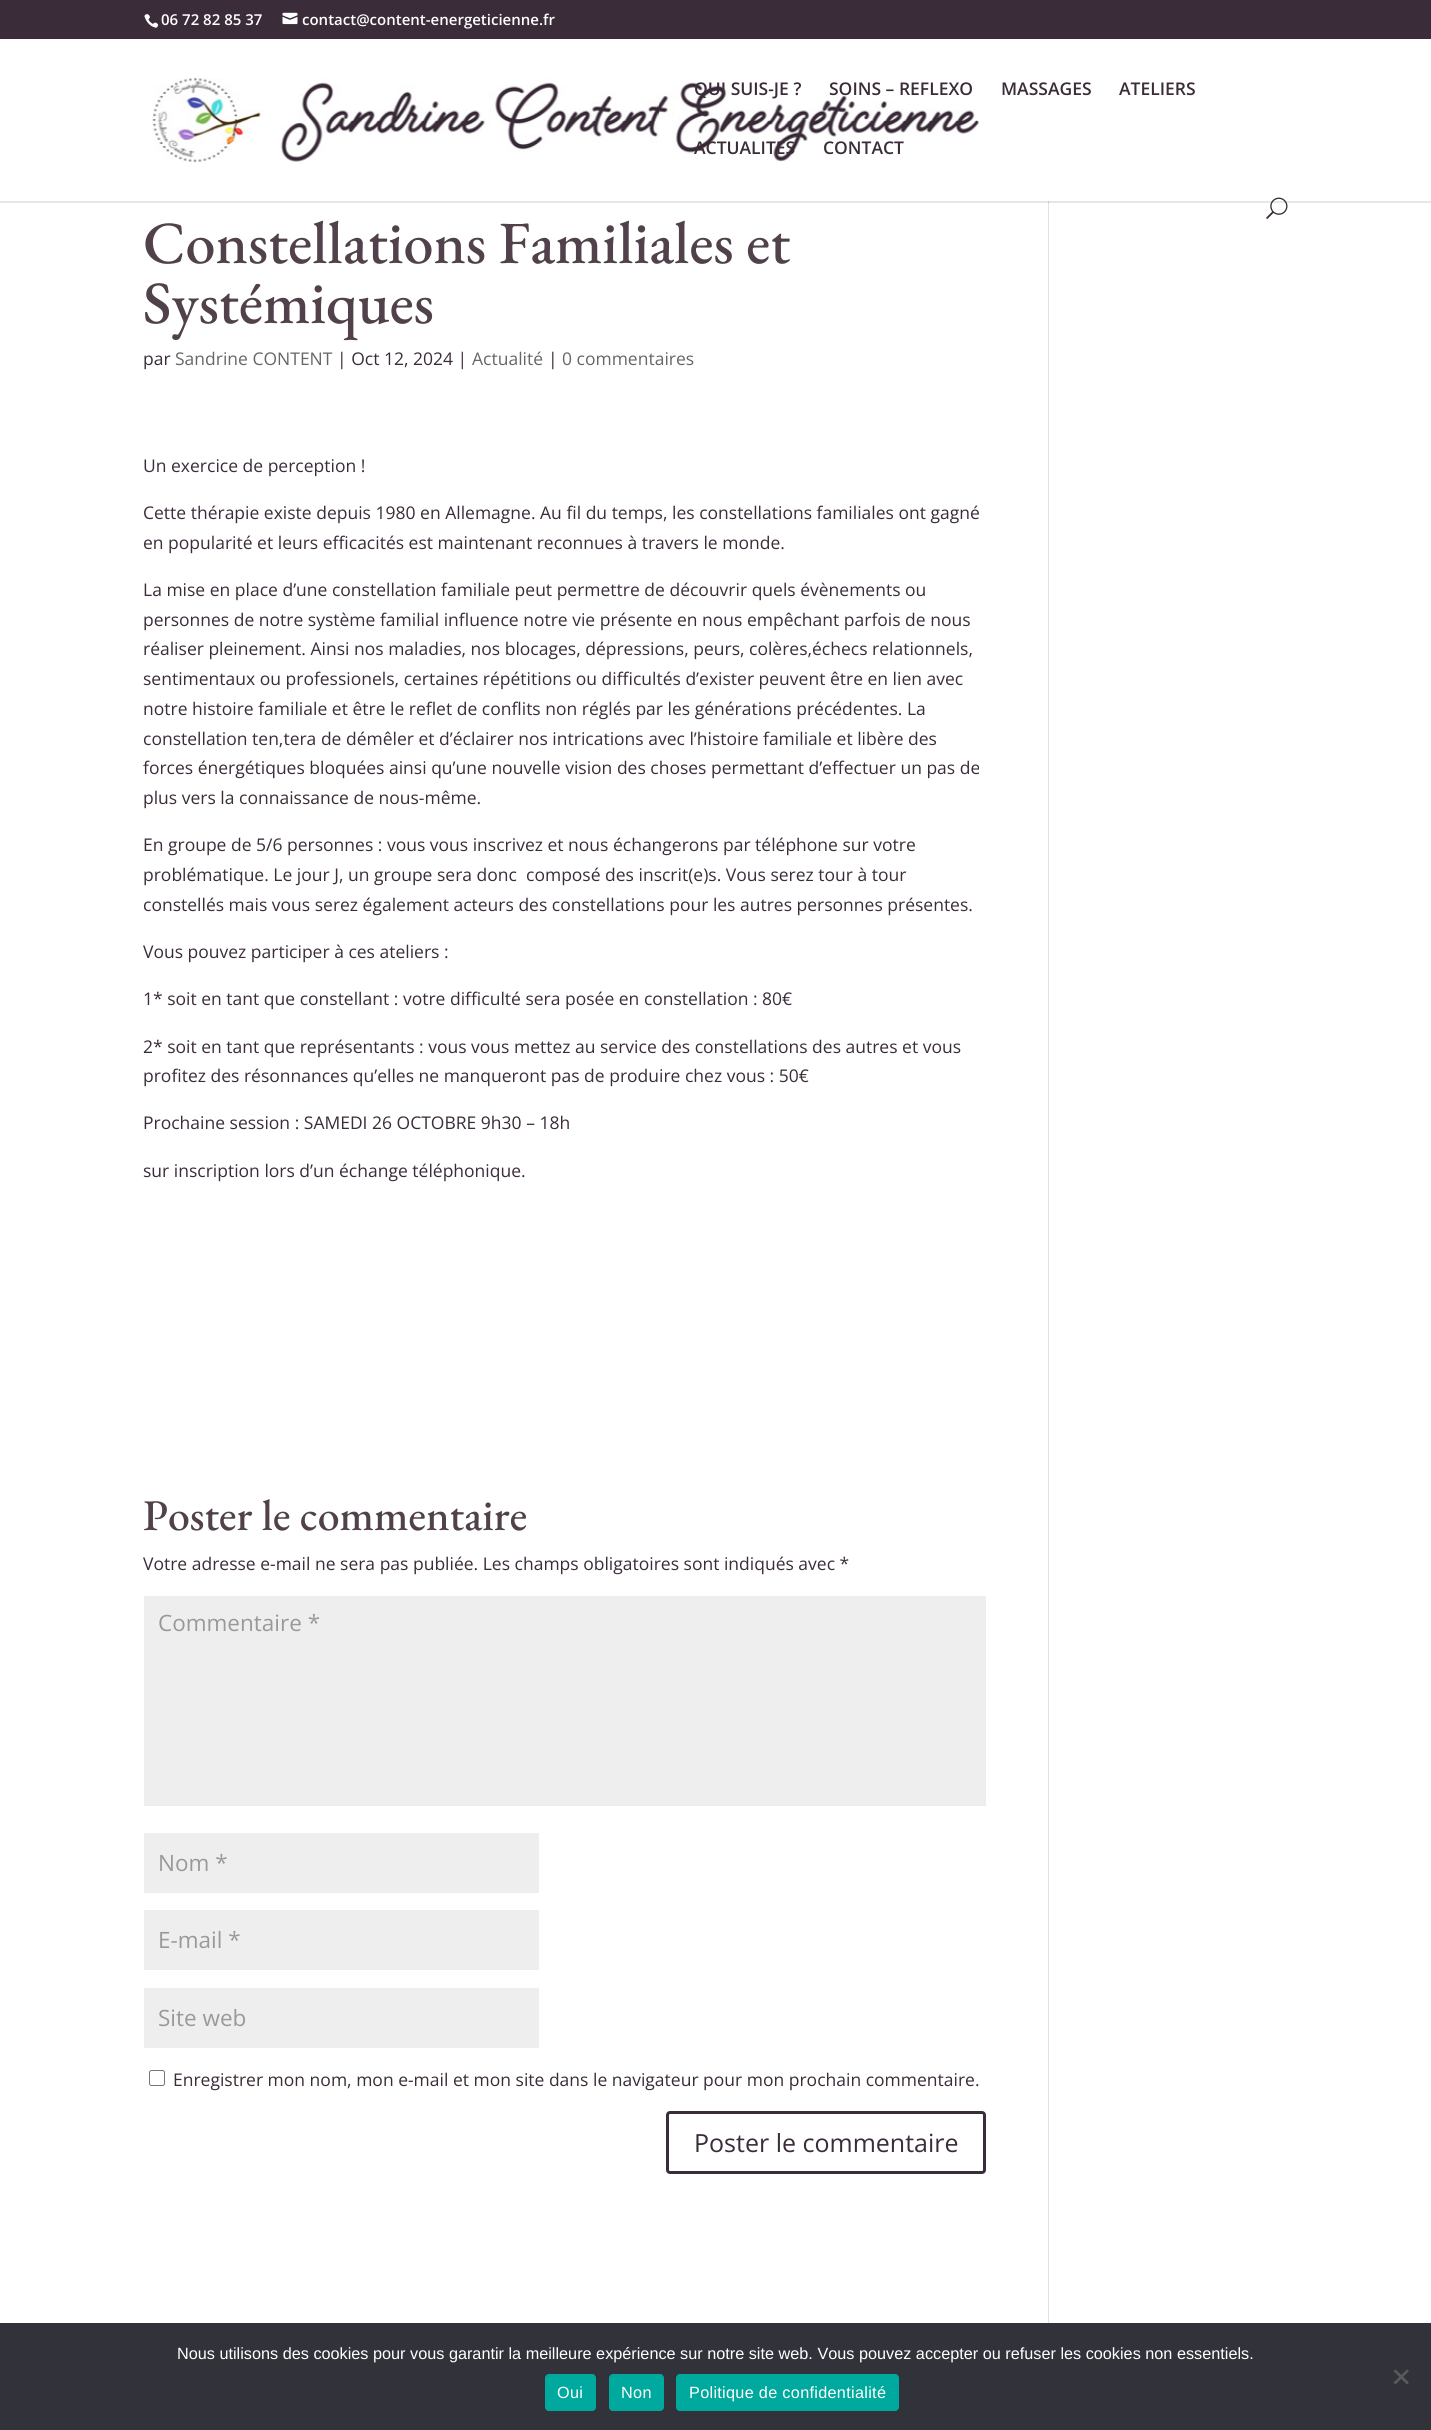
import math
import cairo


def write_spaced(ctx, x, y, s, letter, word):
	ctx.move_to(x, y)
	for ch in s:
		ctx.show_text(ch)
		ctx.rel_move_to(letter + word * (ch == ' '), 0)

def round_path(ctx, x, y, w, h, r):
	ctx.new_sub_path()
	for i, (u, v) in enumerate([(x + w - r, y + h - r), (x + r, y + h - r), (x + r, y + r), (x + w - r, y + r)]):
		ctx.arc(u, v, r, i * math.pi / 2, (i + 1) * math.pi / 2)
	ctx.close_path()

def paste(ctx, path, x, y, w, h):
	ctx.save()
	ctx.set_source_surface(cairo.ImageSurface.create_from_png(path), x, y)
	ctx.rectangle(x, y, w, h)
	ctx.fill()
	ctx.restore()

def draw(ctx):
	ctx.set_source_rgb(1, 1, 1)
	ctx.paint()
	ctx.set_source_rgb(0.902, 0.902, 0.902)
	ctx.rectangle(0, 201, 1431, 2)
	ctx.fill()
	ctx.set_source_rgb(0.227, 0.173, 0.224)
	ctx.rectangle(0, 0, 1431, 39)
	ctx.fill()
	paste(ctx, 'media/1.png', 144, 14, 15, 14)
	ctx.select_font_face('Open Sans SemiBold')
	ctx.set_font_size(15)
	ctx.set_source_rgb(1, 1, 1)
	ctx.move_to(161, 25)
	ctx.show_text('06 72 82 85 37')
	paste(ctx, 'media/2.png', 282, 12, 16, 13)
	ctx.move_to(302, 25)
	ctx.show_text('contact@content-energeticienne.fr')
	paste(ctx, 'media/3.png', 152, 78, 828, 84)
	ctx.set_font_size(17.5)
	ctx.set_source_rgb(0.227, 0.173, 0.224)
	for x, y, s in [
		(694, 95, 'QUI SUIS-JE ?'),
		(829, 95, 'SOINS – REFLEXO'),
		(1001, 95, 'MASSAGES'),
		(1119, 95, 'ATELIERS'),
		(694, 154, 'ACTUALITES'),
		(823, 154, 'CONTACT'),
	]:
		ctx.move_to(x, y)
		ctx.show_text(s)
	paste(ctx, 'media/4.png', 1266, 197, 22, 22)
	ctx.select_font_face('EB Garamond Medium')
	ctx.set_font_size(60)
	ctx.set_source_rgb(0.314, 0.255, 0.29)
	ctx.move_to(143, 263)
	ctx.show_text('Constellations Familiales et')
	ctx.move_to(143, 323)
	ctx.show_text('Systémiques')
	ctx.select_font_face('Open Sans')
	ctx.set_font_size(17.5)
	ctx.set_source_rgb(0.227, 0.173, 0.224)
	ctx.move_to(143, 365)
	ctx.show_text('par')
	ctx.set_source_rgb(0.4, 0.4, 0.4)
	ctx.move_to(175, 365)
	ctx.show_text('Sandrine CONTENT')
	ctx.set_source_rgb(0.227, 0.173, 0.224)
	ctx.move_to(337, 365)
	ctx.show_text('| Oct 12, 2024 |')
	ctx.set_source_rgb(0.4, 0.4, 0.4)
	ctx.move_to(472, 365)
	ctx.show_text('Actualité')
	ctx.set_source_rgb(0.227, 0.173, 0.224)
	ctx.move_to(548, 365)
	ctx.show_text('|')
	ctx.set_source_rgb(0.4, 0.4, 0.4)
	ctx.move_to(562, 365)
	ctx.show_text('0 commentaires')
	ctx.set_source_rgb(0.227, 0.173, 0.224)
	for x, y, s in [
		(143, 472, 'Un exercice de perception !'),
		(143, 519, 'Cette thérapie existe depuis 1980 en Allemagne. Au fil du temps, les constellations familiales ont gagné'),
		(143, 549, 'en popularité et leurs efficacités est maintenant reconnues à travers le monde.'),
		(143, 596, 'La mise en place d’une constellation familiale peut permettre de découvrir quels évènements ou'),
		(143, 626, 'personnes de notre système familial influence notre vie présente en nous empêchant parfois de nous'),
		(143, 655, 'réaliser pleinement. Ainsi nos maladies, nos blocages, dépressions, peurs, colères,échecs relationnels,'),
		(143, 685, 'sentimentaux ou professionels, certaines répétitions ou difficultés d’exister peuvent être en lien avec'),
		(143, 715, 'notre histoire familiale et être le reflet de conflits non réglés par les générations précédentes. La'),
		(143, 745, 'constellation ten,tera de démêler et d’éclairer nos intrications avec l’histoire familiale et libère des'),
		(143, 774, 'forces énergétiques bloquées ainsi qu’une nouvelle vision des choses permettant d’effectuer un pas de'),
		(143, 804, 'plus vers la connaissance de nous-même.'),
		(143, 851, 'En groupe de 5/6 personnes : vous vous inscrivez et nous échangerons par téléphone sur votre'),
		(143, 881, 'problématique. Le jour J, un groupe sera donc  composé des inscrit(e)s. Vous serez tour à tour'),
		(143, 911, 'constellés mais vous serez également acteurs des constellations pour les autres personnes présentes.'),
		(143, 958, 'Vous pouvez participer à ces ateliers :'),
		(143, 1005, '1* soit en tant que constellant : votre difficulté sera posée en constellation : 80€'),
		(143, 1053, '2* soit en tant que représentants : vous vous mettez au service des constellations des autres et vous'),
		(143, 1082, 'profitez des résonnances qu’elles ne manqueront pas de produire chez vous : 50€'),
		(143, 1129, 'Prochaine session : SAMEDI 26 OCTOBRE 9h30 – 18h'),
		(143, 1177, 'sur inscription lors d’un échange téléphonique.'),
	]:
		ctx.move_to(x, y)
		ctx.show_text(s)
	ctx.select_font_face('EB Garamond Medium')
	ctx.set_font_size(43.75)
	ctx.set_source_rgb(0.314, 0.255, 0.29)
	ctx.move_to(143, 1530)
	ctx.show_text('Poster le commentaire')
	ctx.select_font_face('Open Sans')
	ctx.set_font_size(17.5)
	ctx.set_source_rgb(0.227, 0.173, 0.224)
	ctx.move_to(143, 1570)
	ctx.show_text('Votre adresse e-mail ne sera pas publiée. Les champs obligatoires sont indiqués avec *')
	ctx.set_source_rgb(0.933, 0.933, 0.933)
	ctx.rectangle(144, 1596, 842, 210)
	ctx.fill()
	ctx.set_font_size(22.5)
	ctx.set_source_rgb(0.6, 0.6, 0.6)
	ctx.move_to(158, 1631)
	ctx.show_text('Commentaire *')
	ctx.set_source_rgb(0.933, 0.933, 0.933)
	ctx.rectangle(144, 1833, 395, 60)
	ctx.fill()
	ctx.set_source_rgb(0.6, 0.6, 0.6)
	ctx.move_to(158, 1871)
	ctx.show_text('Nom *')
	ctx.set_source_rgb(0.933, 0.933, 0.933)
	ctx.rectangle(144, 1910, 395, 60)
	ctx.fill()
	ctx.set_source_rgb(0.6, 0.6, 0.6)
	ctx.move_to(158, 1948)
	ctx.show_text('E-mail *')
	ctx.set_source_rgb(0.933, 0.933, 0.933)
	ctx.rectangle(144, 1988, 395, 60)
	ctx.fill()
	ctx.set_source_rgb(0.6, 0.6, 0.6)
	ctx.move_to(158, 2026)
	ctx.show_text('Site web')
	round_path(ctx, 149.5, 2070.5, 15, 15, 2)
	ctx.set_source_rgb(0.463, 0.463, 0.463)
	ctx.set_line_width(1)
	ctx.stroke()
	ctx.set_font_size(17.5)
	ctx.set_source_rgb(0.227, 0.173, 0.224)
	ctx.move_to(173, 2086)
	ctx.show_text('Enregistrer mon nom, mon e-mail et mon site dans le navigateur pour mon prochain commentaire.')
	round_path(ctx, 667.5, 2112.5, 317, 60, 2.5)
	ctx.set_line_width(3)
	ctx.stroke()
	ctx.set_font_size(25)
	ctx.move_to(694, 2152)
	ctx.show_text('Poster le commentaire')
	ctx.set_source_rgb(0.886, 0.886, 0.886)
	ctx.rectangle(1048, 203, 1, 2127)
	ctx.fill()
	ctx.set_source_rgb(0.796, 0.796, 0.796)
	ctx.rectangle(1048, 201, 1, 2)
	ctx.fill()
	ctx.set_source_rgb(0.196, 0.196, 0.227)
	ctx.rectangle(0, 2323, 1431, 107)
	ctx.fill()
	ctx.select_font_face('Liberation Sans')
	ctx.set_font_size(16.25)
	ctx.set_source_rgb(1, 1, 1)
	ctx.move_to(177, 2359)
	ctx.show_text('Nous utilisons des cookies pour vous garantir la meilleure expérience sur notre site web. Vous pouvez accepter ou refuser les cookies non essentiels.')
	ctx.set_source_rgb(0.349, 0.349, 0.365)
	ctx.new_path()
	ctx.move_to(1407, 2369.5)
	ctx.line_to(1409, 2371)
	ctx.line_to(1395.5, 2384.5)
	ctx.line_to(1393.5, 2382.5)
	ctx.close_path()
	ctx.fill()
	ctx.new_path()
	ctx.move_to(1393.5, 2371)
	ctx.line_to(1395.5, 2369.5)
	ctx.line_to(1409, 2382.5)
	ctx.line_to(1407, 2384.5)
	ctx.close_path()
	ctx.fill()
	ctx.set_source_rgb(0, 0.663, 0.616)
	round_path(ctx, 545, 2374, 51, 37, 4)
	ctx.fill()
	ctx.set_source_rgb(1, 1, 1)
	write_spaced(ctx, 557, 2398, 'Oui', 0.3, 0)
	ctx.set_source_rgb(0, 0.663, 0.616)
	round_path(ctx, 609, 2374, 55, 37, 4)
	ctx.fill()
	ctx.set_source_rgb(1, 1, 1)
	write_spaced(ctx, 621, 2398, 'Non', 0.3, 0)
	ctx.set_source_rgb(0, 0.663, 0.616)
	round_path(ctx, 676, 2374, 223, 37, 4)
	ctx.fill()
	ctx.set_source_rgb(1, 1, 1)
	write_spaced(ctx, 689, 2398, 'Politique de confidentialité', 0.3, 0)


surface = cairo.ImageSurface(cairo.FORMAT_RGB24, 1431, 2430)
ctx = cairo.Context(surface)
options = cairo.FontOptions()
options.set_hint_metrics(cairo.HINT_METRICS_OFF)
options.set_hint_style(cairo.HINT_STYLE_NONE)
ctx.set_font_options(options)
ctx.set_miter_limit(4)
draw(ctx)
surface.write_to_png('image.png')
